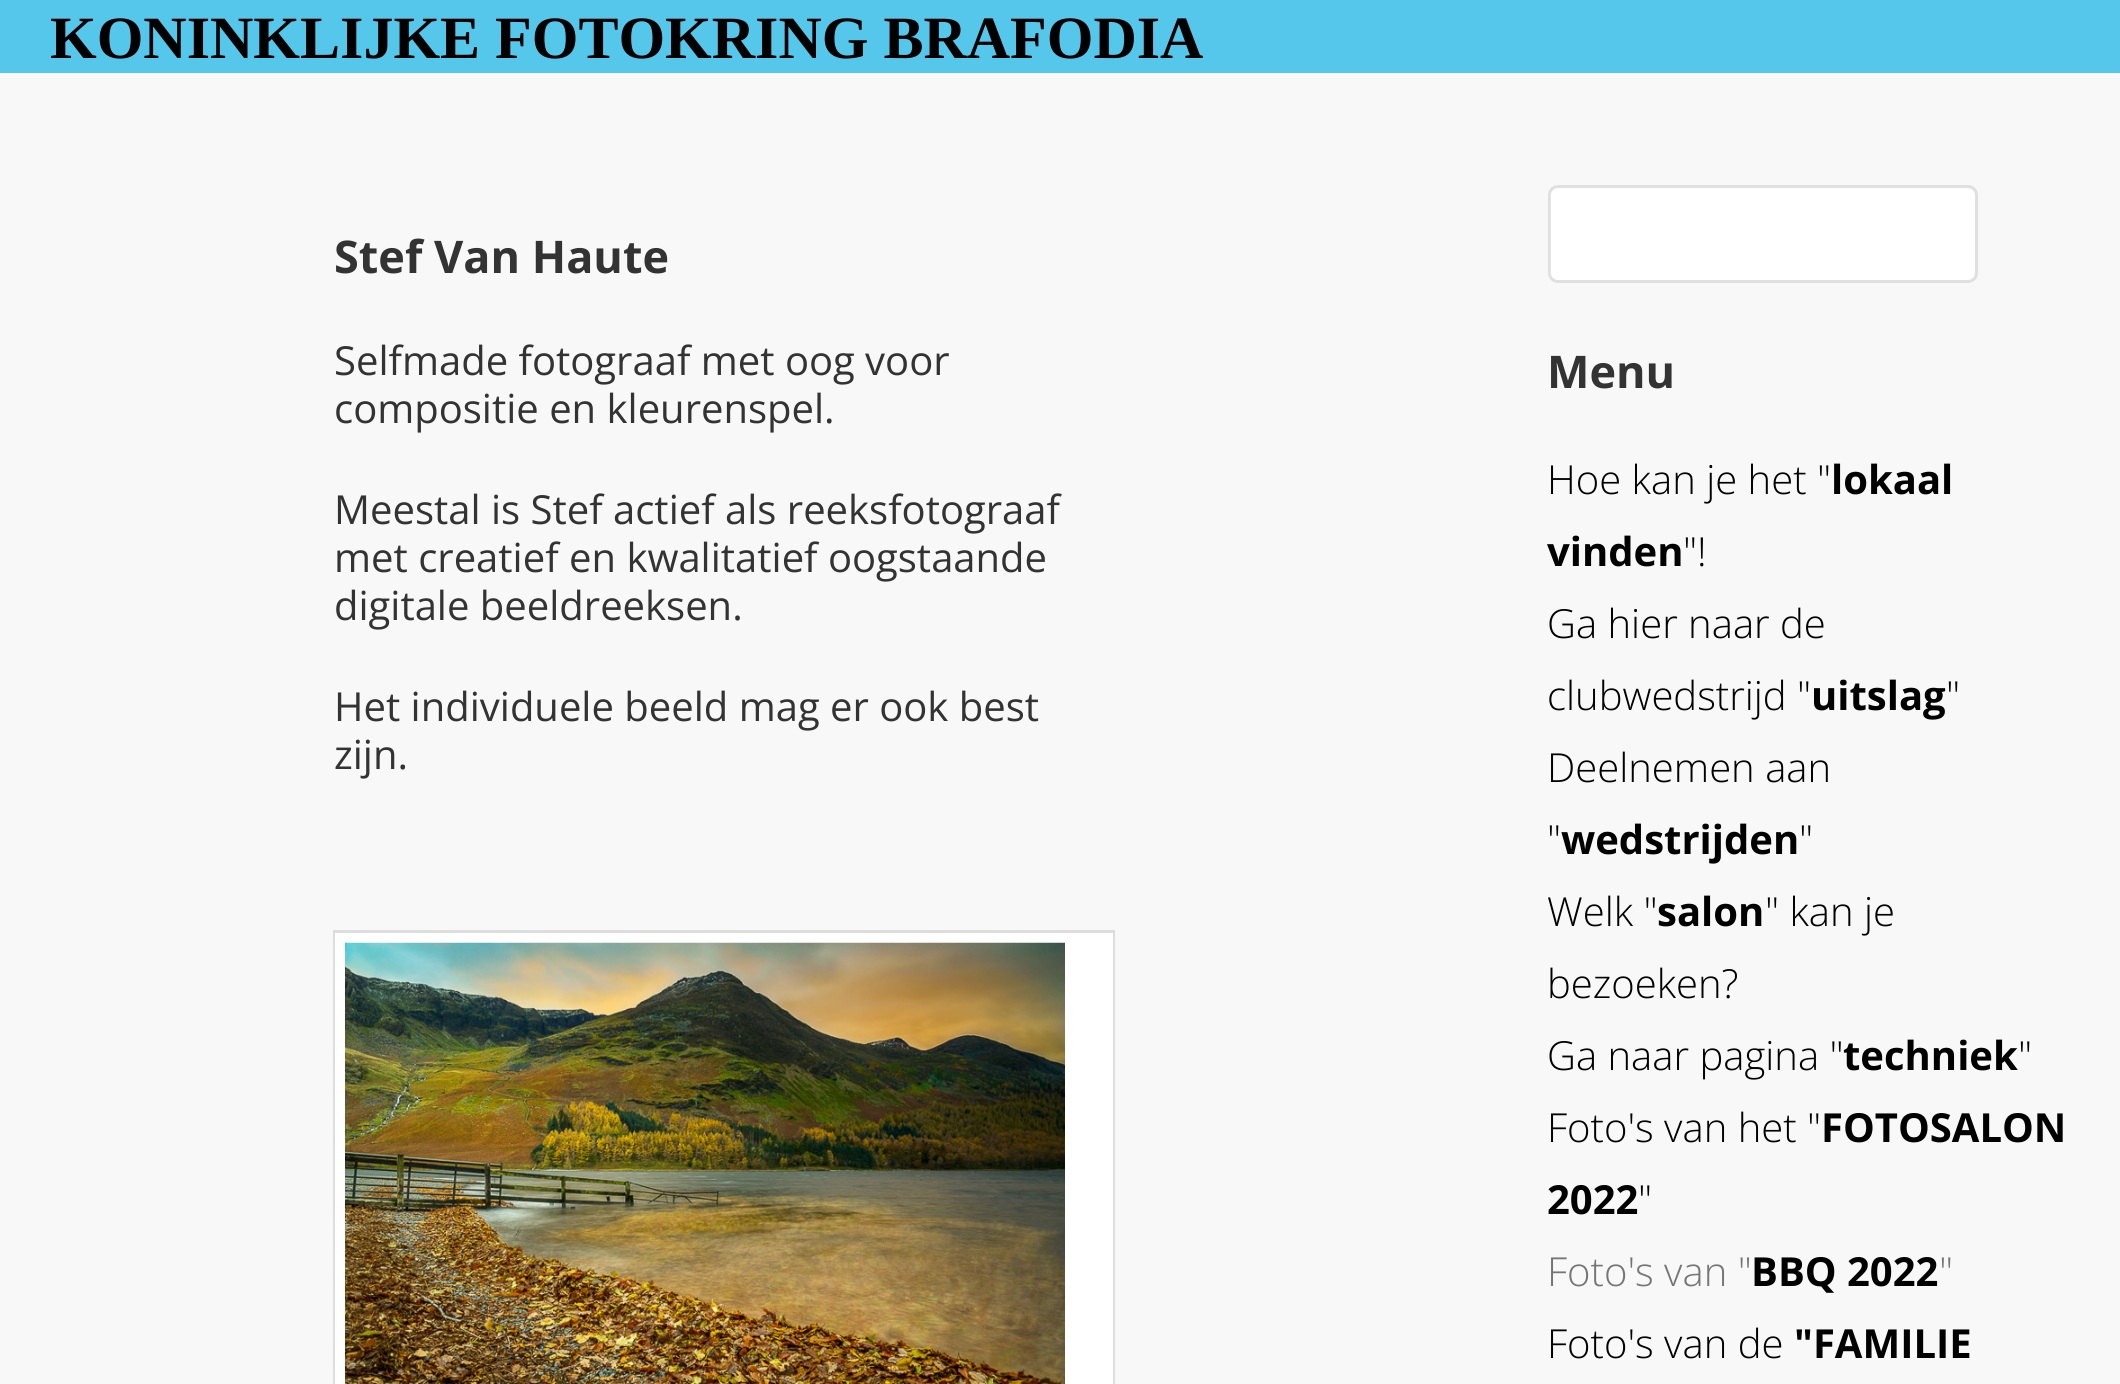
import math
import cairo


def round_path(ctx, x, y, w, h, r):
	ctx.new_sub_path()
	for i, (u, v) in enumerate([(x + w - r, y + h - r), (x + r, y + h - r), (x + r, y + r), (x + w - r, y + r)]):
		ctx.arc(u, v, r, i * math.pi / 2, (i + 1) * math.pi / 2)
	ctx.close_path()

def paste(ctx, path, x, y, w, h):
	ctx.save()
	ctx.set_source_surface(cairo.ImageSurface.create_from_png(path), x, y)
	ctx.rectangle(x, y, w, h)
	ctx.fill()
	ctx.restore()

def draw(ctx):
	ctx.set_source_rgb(0.969, 0.969, 0.969)
	ctx.paint()
	ctx.set_source_rgb(0.329, 0.78, 0.918)
	ctx.rectangle(0, 0, 2120, 73)
	ctx.fill()
	ctx.select_font_face('Liberation Serif', cairo.FONT_SLANT_NORMAL, cairo.FONT_WEIGHT_BOLD)
	ctx.set_font_size(60)
	ctx.set_source_rgb(0, 0, 0)
	ctx.move_to(50, 58)
	ctx.show_text('KONINKLIJKE FOTOKRING BRAFODIA')
	ctx.select_font_face('Open Sans', cairo.FONT_SLANT_NORMAL, cairo.FONT_WEIGHT_BOLD)
	ctx.set_font_size(45)
	ctx.set_source_rgb(0.2, 0.2, 0.2)
	ctx.move_to(334, 273)
	ctx.show_text('Stef Van Haute')
	ctx.select_font_face('Open Sans')
	ctx.set_font_size(40)
	for x, y, s in [
		(334, 375, 'Selfmade fotograaf met oog voor'),
		(334, 423, 'compositie en kleurenspel.'),
		(334, 524, 'Meestal is Stef actief als reeksfotograaf'),
		(334, 572, 'met creatief en kwalitatief oogstaande'),
		(334, 620, 'digitale beeldreeksen.'),
		(334, 721, 'Het individuele beeld mag er ook best'),
		(334, 769, 'zijn.'),
	]:
		ctx.move_to(x, y)
		ctx.show_text(s)
	ctx.rectangle(334.5, 931.5, 779, 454)
	ctx.set_source_rgb(0.867, 0.867, 0.867)
	ctx.set_line_width(3)
	ctx.stroke()
	ctx.set_source_rgb(1, 1, 1)
	ctx.rectangle(335, 933, 778, 451)
	ctx.fill()
	paste(ctx, 'media/1.png', 345, 942, 720, 442)
	round_path(ctx, 1550, 188, 425, 92, 8)
	ctx.fill()
	round_path(ctx, 1549.5, 186.5, 427, 95, 8.5)
	ctx.set_source_rgba(0, 0, 0, 0.1)
	ctx.stroke()
	ctx.select_font_face('Open Sans', cairo.FONT_SLANT_NORMAL, cairo.FONT_WEIGHT_BOLD)
	ctx.set_font_size(45)
	ctx.set_source_rgb(0.2, 0.2, 0.2)
	ctx.move_to(1547, 388)
	ctx.show_text('Menu')
	ctx.select_font_face('Open Sans Light')
	ctx.set_font_size(40)
	ctx.set_source_rgb(0, 0, 0)
	ctx.move_to(1547, 494)
	ctx.show_text('Hoe kan je het "')
	ctx.select_font_face('Open Sans', cairo.FONT_SLANT_NORMAL, cairo.FONT_WEIGHT_BOLD)
	ctx.move_to(1831, 494)
	ctx.show_text('lokaal')
	ctx.move_to(1547, 566)
	ctx.show_text('vinden')
	ctx.select_font_face('Open Sans Light')
	for x, y, s in [
		(1683, 566, '"!'),
		(1547, 638, 'Ga hier naar de'),
		(1547, 710, 'clubwedstrijd "'),
	]:
		ctx.move_to(x, y)
		ctx.show_text(s)
	ctx.select_font_face('Open Sans', cairo.FONT_SLANT_NORMAL, cairo.FONT_WEIGHT_BOLD)
	ctx.move_to(1811, 710)
	ctx.show_text('uitslag')
	ctx.select_font_face('Open Sans Light')
	for x, y, s in [
		(1946, 710, '"'),
		(1547, 782, 'Deelnemen aan'),
		(1547, 854, '"'),
	]:
		ctx.move_to(x, y)
		ctx.show_text(s)
	ctx.select_font_face('Open Sans', cairo.FONT_SLANT_NORMAL, cairo.FONT_WEIGHT_BOLD)
	ctx.move_to(1561, 854)
	ctx.show_text('wedstrijden')
	ctx.select_font_face('Open Sans Light')
	ctx.move_to(1799, 854)
	ctx.show_text('"')
	ctx.move_to(1547, 926)
	ctx.show_text('Welk "')
	ctx.select_font_face('Open Sans', cairo.FONT_SLANT_NORMAL, cairo.FONT_WEIGHT_BOLD)
	ctx.move_to(1657, 926)
	ctx.show_text('salon')
	ctx.select_font_face('Open Sans Light')
	for x, y, s in [
		(1765, 926, '" kan je'),
		(1547, 998, 'bezoeken?'),
		(1547, 1070, 'Ga naar pagina "'),
	]:
		ctx.move_to(x, y)
		ctx.show_text(s)
	ctx.select_font_face('Open Sans', cairo.FONT_SLANT_NORMAL, cairo.FONT_WEIGHT_BOLD)
	ctx.move_to(1843, 1070)
	ctx.show_text('techniek')
	ctx.select_font_face('Open Sans Light')
	ctx.move_to(2018, 1070)
	ctx.show_text('"')
	ctx.move_to(1547, 1142)
	ctx.show_text('Foto\'s van het "')
	ctx.select_font_face('Open Sans', cairo.FONT_SLANT_NORMAL, cairo.FONT_WEIGHT_BOLD)
	ctx.move_to(1821, 1142)
	ctx.show_text('FOTOSALON')
	ctx.move_to(1547, 1214)
	ctx.show_text('2022')
	ctx.select_font_face('Open Sans Light')
	ctx.move_to(1638, 1214)
	ctx.show_text('"')
	ctx.set_source_rgb(0.459, 0.459, 0.459)
	ctx.move_to(1547, 1286)
	ctx.show_text('Foto\'s van "')
	ctx.select_font_face('Open Sans', cairo.FONT_SLANT_NORMAL, cairo.FONT_WEIGHT_BOLD)
	ctx.set_source_rgb(0, 0, 0)
	ctx.move_to(1751, 1286)
	ctx.show_text('BBQ 2022')
	ctx.select_font_face('Open Sans Light')
	ctx.set_source_rgb(0.459, 0.459, 0.459)
	ctx.move_to(1939, 1286)
	ctx.show_text('"')
	ctx.set_source_rgb(0, 0, 0)
	ctx.move_to(1547, 1358)
	ctx.show_text('Foto\'s van de')
	ctx.select_font_face('Open Sans', cairo.FONT_SLANT_NORMAL, cairo.FONT_WEIGHT_BOLD)
	ctx.move_to(1794, 1358)
	ctx.show_text('"FAMILIE')


surface = cairo.ImageSurface(cairo.FORMAT_RGB24, 2120, 1384)
ctx = cairo.Context(surface)
options = cairo.FontOptions()
options.set_hint_metrics(cairo.HINT_METRICS_OFF)
options.set_hint_style(cairo.HINT_STYLE_NONE)
ctx.set_font_options(options)
ctx.set_miter_limit(4)
draw(ctx)
surface.write_to_png('image.png')
